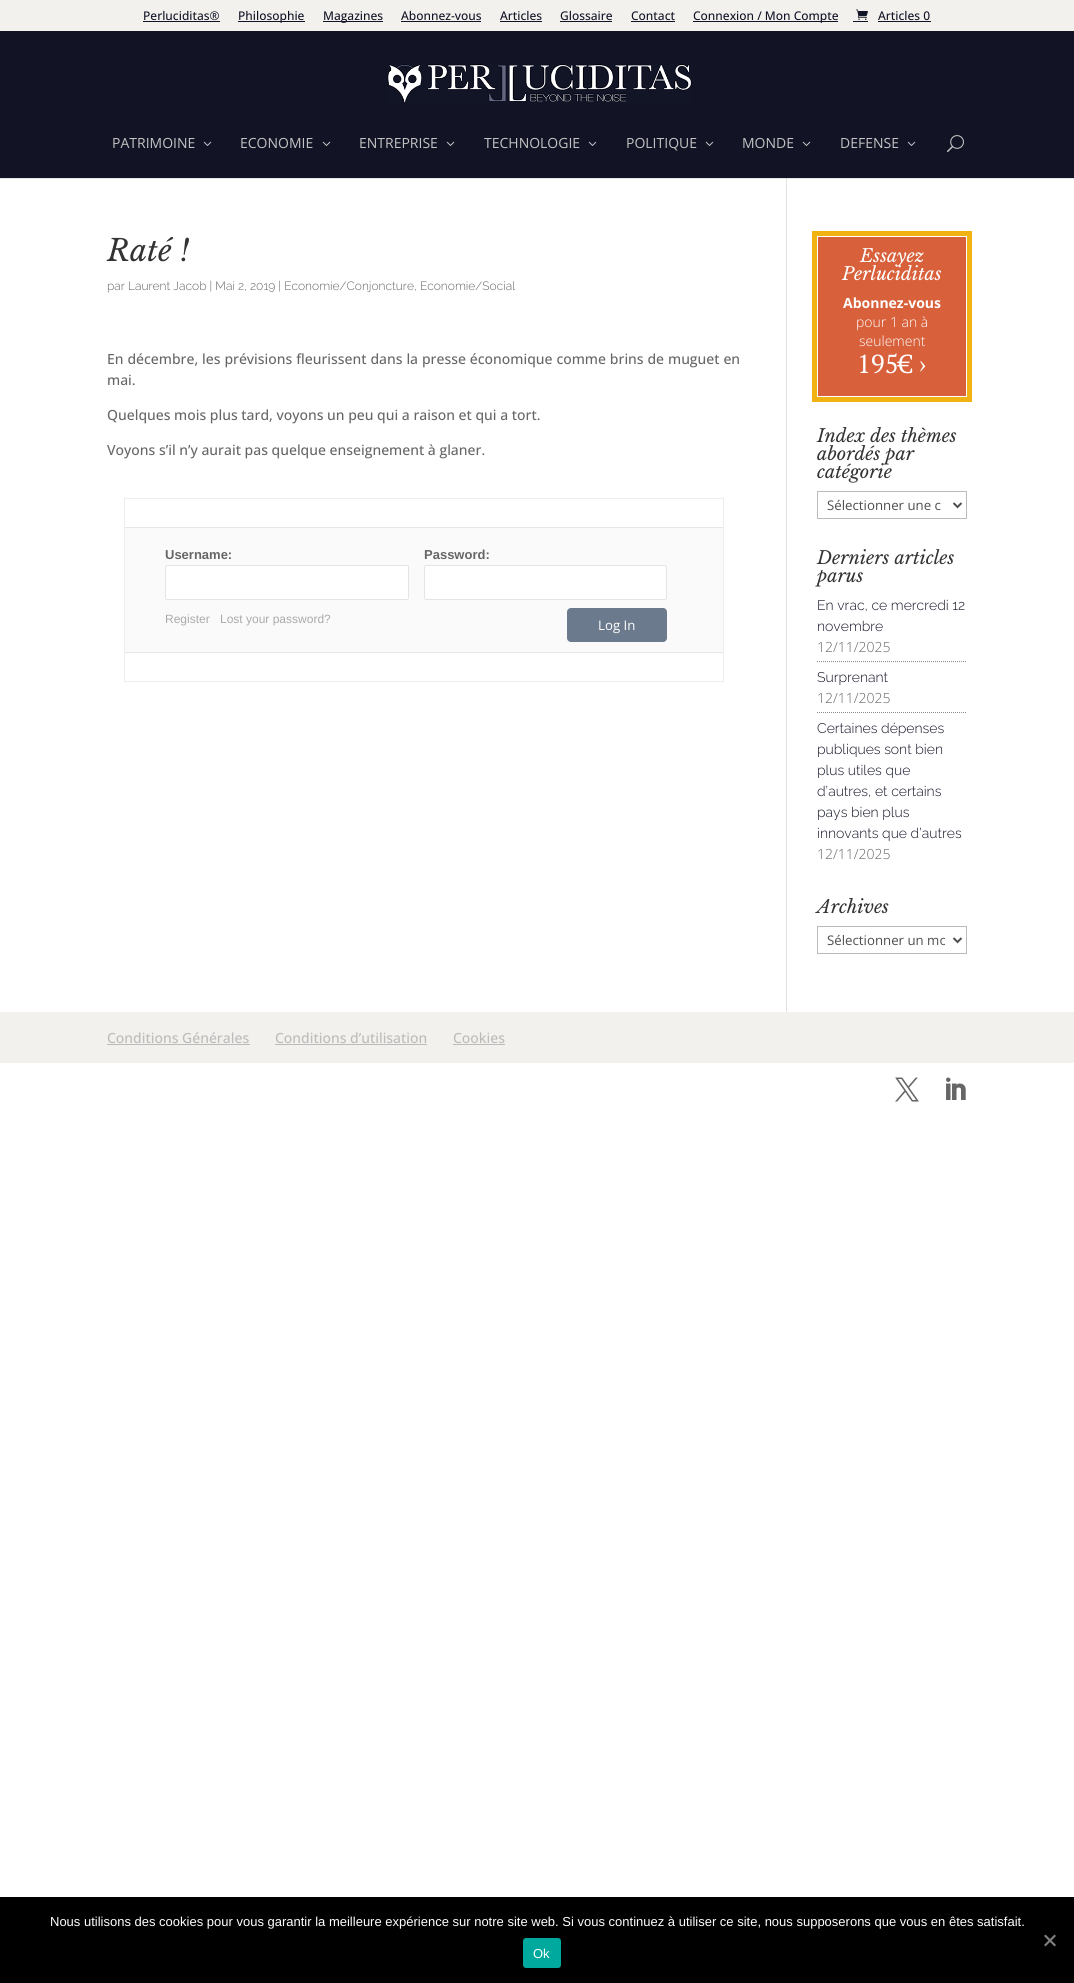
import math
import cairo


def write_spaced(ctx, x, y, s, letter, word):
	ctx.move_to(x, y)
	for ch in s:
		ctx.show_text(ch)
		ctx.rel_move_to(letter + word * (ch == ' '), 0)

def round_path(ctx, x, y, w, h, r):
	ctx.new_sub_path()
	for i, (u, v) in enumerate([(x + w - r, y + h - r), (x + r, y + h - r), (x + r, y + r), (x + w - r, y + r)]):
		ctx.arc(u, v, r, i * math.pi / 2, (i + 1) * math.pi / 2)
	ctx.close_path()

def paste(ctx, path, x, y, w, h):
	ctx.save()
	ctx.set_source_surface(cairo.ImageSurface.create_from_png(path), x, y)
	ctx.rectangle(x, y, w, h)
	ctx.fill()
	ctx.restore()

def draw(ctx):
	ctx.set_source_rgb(1, 1, 1)
	ctx.paint()
	ctx.set_source_rgb(0.902, 0.902, 0.902)
	ctx.rectangle(0, 178, 1074, 1)
	ctx.fill()
	ctx.set_source_rgb(0.949, 0.945, 0.929)
	ctx.rectangle(0, 0, 1074, 31)
	ctx.fill()
	ctx.select_font_face('Open Sans Medium')
	ctx.set_font_size(12)
	ctx.set_source_rgb(0.071, 0.082, 0.149)
	ctx.move_to(143, 20)
	ctx.show_text('Perluciditas®')
	ctx.rectangle(143, 21, 77, 1)
	ctx.fill()
	ctx.rectangle(238, 21, 67, 1)
	ctx.fill()
	ctx.move_to(238, 20)
	ctx.show_text('Philosophie')
	ctx.rectangle(323, 21, 60, 1)
	ctx.fill()
	ctx.move_to(323, 20)
	ctx.show_text('Magazines')
	ctx.move_to(401, 20)
	ctx.show_text('Abonnez-vous')
	ctx.rectangle(401, 21, 80, 1)
	ctx.fill()
	ctx.move_to(500, 20)
	ctx.show_text('Articles')
	ctx.rectangle(500, 21, 42, 1)
	ctx.fill()
	ctx.move_to(560, 20)
	ctx.show_text('Glossaire')
	ctx.rectangle(560, 21, 52, 1)
	ctx.fill()
	ctx.move_to(631, 20)
	ctx.show_text('Contact')
	ctx.rectangle(631, 21, 44, 1)
	ctx.fill()
	ctx.rectangle(693, 21, 145, 1)
	ctx.fill()
	ctx.move_to(693, 20)
	ctx.show_text('Connexion / Mon Compte')
	paste(ctx, 'media/1.png', 856, 9, 12, 11)
	ctx.move_to(878, 20)
	ctx.show_text('Articles 0')
	ctx.rectangle(853, 21, 15, 1)
	ctx.rectangle(878, 21, 53, 1)
	ctx.rectangle(0, 31, 1074, 147)
	ctx.fill()
	paste(ctx, 'media/2.png', 387, 64, 305, 39)
	ctx.select_font_face('Open Sans')
	ctx.set_font_size(14)
	ctx.set_source_rgb(0.765, 0.765, 0.765)
	ctx.move_to(112, 148)
	ctx.show_text('PATRIMOINE')
	paste(ctx, 'media/3.png', 203, 141, 9, 5)
	ctx.move_to(240, 148)
	ctx.show_text('ECONOMIE')
	paste(ctx, 'media/3.png', 322, 141, 9, 5)
	ctx.move_to(359, 148)
	ctx.show_text('ENTREPRISE')
	paste(ctx, 'media/3.png', 446, 141, 9, 5)
	ctx.move_to(484, 148)
	ctx.show_text('TECHNOLOGIE')
	paste(ctx, 'media/3.png', 588, 141, 9, 5)
	ctx.move_to(626, 148)
	ctx.show_text('POLITIQUE')
	paste(ctx, 'media/3.png', 705, 141, 9, 5)
	ctx.move_to(742, 148)
	ctx.show_text('MONDE')
	paste(ctx, 'media/3.png', 802, 141, 9, 5)
	ctx.move_to(840, 148)
	ctx.show_text('DEFENSE')
	paste(ctx, 'media/3.png', 907, 141, 9, 5)
	paste(ctx, 'media/4.png', 947, 135, 17, 18)
	ctx.set_source_rgb(0.886, 0.886, 0.886)
	ctx.rectangle(786, 178, 1, 834)
	ctx.fill()
	ctx.set_source_rgb(0.796, 0.796, 0.796)
	ctx.rectangle(786, 178, 1, 1)
	ctx.fill()
	ctx.select_font_face('Libre Baskerville', cairo.FONT_SLANT_ITALIC)
	ctx.set_font_size(30)
	ctx.set_source_rgb(0.2, 0.2, 0.2)
	ctx.move_to(107, 261)
	ctx.show_text('Raté !')
	ctx.select_font_face('Raleway Thin')
	ctx.set_font_size(12)
	ctx.set_source_rgb(0.4, 0.4, 0.4)
	ctx.move_to(107, 290)
	ctx.show_text('par Laurent Jacob | Mai 2, 2019 | Economie/Conjoncture, Economie/Social')
	ctx.select_font_face('Open Sans Medium')
	ctx.set_font_size(14)
	write_spaced(ctx, 107, 364, 'En décembre, les prévisions fleurissent dans la presse économique comme brins de muguet en', 0, 0.25)
	for x, y, s in [
		(107, 385, 'mai.'),
		(107, 420, 'Quelques mois plus tard, voyons un peu qui a raison et qui a tort.'),
		(107, 455, 'Voyons s’il n’y aurait pas quelque enseignement à glaner.'),
	]:
		ctx.move_to(x, y)
		ctx.show_text(s)
	ctx.rectangle(124.5, 498.5, 599, 183)
	ctx.set_source_rgb(0.929, 0.929, 0.929)
	ctx.set_line_width(1)
	ctx.stroke()
	ctx.set_source_rgb(0.98, 0.98, 0.98)
	ctx.rectangle(125, 528, 598, 124)
	ctx.fill()
	ctx.set_source_rgb(0.902, 0.902, 0.902)
	ctx.rectangle(125, 527, 598, 1)
	ctx.rectangle(125, 652, 598, 1)
	ctx.fill()
	ctx.select_font_face('Liberation Sans', cairo.FONT_SLANT_NORMAL, cairo.FONT_WEIGHT_BOLD)
	ctx.set_font_size(13)
	ctx.set_source_rgb(0.4, 0.4, 0.4)
	ctx.move_to(165, 559)
	ctx.show_text('Username:')
	ctx.set_source_rgb(1, 1, 1)
	round_path(ctx, 165.5, 565.5, 243, 34, 1.5)
	ctx.fill_preserve()
	ctx.set_source_rgb(0.898, 0.898, 0.898)
	ctx.stroke()
	ctx.set_source_rgb(0.4, 0.4, 0.4)
	ctx.move_to(424, 559)
	ctx.show_text('Password:')
	ctx.set_source_rgb(1, 1, 1)
	round_path(ctx, 424.5, 565.5, 242, 34, 1.5)
	ctx.fill_preserve()
	ctx.set_source_rgb(0.898, 0.898, 0.898)
	ctx.stroke()
	ctx.select_font_face('Liberation Sans')
	ctx.set_font_size(12)
	ctx.set_source_rgb(0.667, 0.667, 0.667)
	ctx.move_to(165, 623)
	ctx.show_text('Register')
	ctx.move_to(220, 623)
	ctx.show_text('Lost your password?')
	ctx.set_source_rgb(0.424, 0.478, 0.553)
	round_path(ctx, 567, 608, 100, 34, 4)
	ctx.fill()
	ctx.select_font_face('Open Sans')
	ctx.set_font_size(13.25)
	ctx.set_source_rgb(1, 1, 1)
	ctx.move_to(598, 630)
	ctx.show_text('Log In')
	ctx.set_source_rgb(0.847, 0.38, 0.235)
	ctx.rectangle(818, 237, 148, 159)
	ctx.fill()
	ctx.rectangle(814.5, 233.5, 155, 166)
	ctx.set_source_rgb(0.945, 0.702, 0.078)
	ctx.set_line_width(5)
	ctx.stroke()
	ctx.select_font_face('Libre Baskerville', cairo.FONT_SLANT_ITALIC)
	ctx.set_font_size(18)
	ctx.set_source_rgb(1, 1, 1)
	ctx.move_to(860, 262)
	ctx.show_text('Essayez')
	ctx.move_to(842, 280)
	ctx.show_text('Perluciditas')
	ctx.select_font_face('Open Sans', cairo.FONT_SLANT_NORMAL, cairo.FONT_WEIGHT_BOLD)
	ctx.set_font_size(14)
	ctx.move_to(843, 308)
	ctx.show_text('Abonnez-vous')
	ctx.select_font_face('Open Sans Light')
	ctx.move_to(856, 327)
	ctx.show_text('pour 1 an à')
	ctx.move_to(859, 346)
	ctx.show_text('seulement')
	ctx.select_font_face('PT Serif')
	ctx.set_font_size(26)
	ctx.move_to(857, 373)
	ctx.show_text('195€ ›')
	ctx.select_font_face('Libre Baskerville', cairo.FONT_SLANT_ITALIC)
	ctx.set_font_size(18)
	ctx.set_source_rgb(0.2, 0.2, 0.2)
	for x, y, s in [
		(817, 442, 'Index des thèmes'),
		(817, 460, 'abordés par'),
		(817, 478, 'catégorie'),
	]:
		ctx.move_to(x, y)
		ctx.show_text(s)
	ctx.rectangle(817.5, 491.5, 149, 27)
	ctx.set_source_rgb(0.733, 0.733, 0.733)
	ctx.set_line_width(1)
	ctx.stroke()
	ctx.new_path()
	ctx.move_to(953.5, 503)
	ctx.line_to(957.5, 507)
	ctx.line_to(961.5, 503)
	ctx.set_source_rgb(0.306, 0.306, 0.306)
	ctx.set_line_width(2)
	ctx.stroke()
	ctx.select_font_face('Open Sans')
	ctx.set_font_size(13.25)
	ctx.move_to(827, 510)
	ctx.show_text('Sélectionner une c')
	ctx.select_font_face('Libre Baskerville', cairo.FONT_SLANT_ITALIC)
	ctx.set_font_size(18)
	ctx.set_source_rgb(0.2, 0.2, 0.2)
	ctx.move_to(817, 564)
	ctx.show_text('Derniers articles')
	ctx.move_to(817, 582)
	ctx.show_text('parus')
	ctx.new_path()
	ctx.move_to(817, 661.5)
	ctx.line_to(967, 661.5)
	ctx.set_source_rgb(0.537, 0.541, 0.576)
	ctx.set_line_width(1)
	ctx.set_dash([1, 1])
	ctx.stroke()
	ctx.select_font_face('Raleway Thin')
	ctx.set_font_size(14)
	ctx.set_source_rgb(0.071, 0.082, 0.149)
	ctx.move_to(817, 610)
	ctx.show_text('En vrac, ce mercredi 12')
	ctx.move_to(817, 631)
	ctx.show_text('novembre')
	ctx.select_font_face('Open Sans Light')
	ctx.set_source_rgb(0.4, 0.4, 0.4)
	ctx.move_to(817, 652)
	ctx.show_text('12/11/2025')
	ctx.new_path()
	ctx.move_to(817, 712.5)
	ctx.line_to(967, 712.5)
	ctx.set_source_rgb(0.537, 0.541, 0.576)
	ctx.stroke()
	ctx.select_font_face('Raleway Thin')
	ctx.set_source_rgb(0.071, 0.082, 0.149)
	ctx.move_to(817, 682)
	ctx.show_text('Surprenant')
	ctx.select_font_face('Open Sans Light')
	ctx.set_source_rgb(0.4, 0.4, 0.4)
	ctx.move_to(817, 703)
	ctx.show_text('12/11/2025')
	ctx.select_font_face('Raleway Thin')
	ctx.set_source_rgb(0.071, 0.082, 0.149)
	for x, y, s in [
		(817, 733, 'Certaines dépenses'),
		(817, 754, 'publiques sont bien'),
		(817, 775, 'plus utiles que'),
		(817, 796, 'd’autres, et certains'),
		(817, 817, 'pays bien plus'),
		(817, 838, 'innovants que d’autres'),
	]:
		ctx.move_to(x, y)
		ctx.show_text(s)
	ctx.select_font_face('Open Sans Light')
	ctx.set_source_rgb(0.4, 0.4, 0.4)
	ctx.move_to(817, 859)
	ctx.show_text('12/11/2025')
	ctx.select_font_face('Libre Baskerville', cairo.FONT_SLANT_ITALIC)
	ctx.set_font_size(18)
	ctx.set_source_rgb(0.2, 0.2, 0.2)
	ctx.move_to(817, 913)
	ctx.show_text('Archives')
	ctx.rectangle(817.5, 926.5, 149, 27)
	ctx.set_source_rgb(0.733, 0.733, 0.733)
	ctx.set_dash([])
	ctx.stroke()
	ctx.new_path()
	ctx.move_to(953.5, 938)
	ctx.line_to(957.5, 942)
	ctx.line_to(961.5, 938)
	ctx.set_source_rgb(0.306, 0.306, 0.306)
	ctx.set_line_width(2)
	ctx.stroke()
	ctx.save()
	ctx.rectangle(827, 930, 118, 20)
	ctx.clip()
	ctx.select_font_face('Open Sans')
	ctx.set_font_size(13.25)
	ctx.move_to(827, 945)
	ctx.show_text('Sélectionner un mo')
	ctx.restore()
	ctx.set_source_rgb(0.949, 0.945, 0.929)
	ctx.rectangle(0, 1012, 1074, 51)
	ctx.fill()
	ctx.select_font_face('Open Sans Medium')
	ctx.set_font_size(14)
	ctx.set_source_rgb(0.733, 0.733, 0.733)
	ctx.move_to(107, 1043)
	ctx.show_text('Conditions Générales')
	ctx.rectangle(107, 1044, 143, 1)
	ctx.fill()
	ctx.move_to(275, 1043)
	ctx.show_text('Conditions d’utilisation')
	ctx.rectangle(275, 1044, 152, 1)
	ctx.fill()
	ctx.move_to(453, 1043)
	ctx.show_text('Cookies')
	ctx.rectangle(453, 1044, 52, 1)
	ctx.fill()
	paste(ctx, 'media/5.png', 895, 1077, 24, 25)
	paste(ctx, 'media/6.png', 946, 1077, 20, 23)
	ctx.set_source_rgb(0, 0, 0)
	ctx.rectangle(0, 1897, 1074, 86)
	ctx.fill()
	ctx.select_font_face('Liberation Sans')
	ctx.set_font_size(13)
	ctx.set_source_rgb(1, 1, 1)
	ctx.move_to(50, 1926)
	ctx.show_text('Nous utilisons des cookies pour vous garantir la meilleure expérience sur notre site web. Si vous continuez à utiliser ce site, nous supposerons que vous en êtes satisfait.')
	ctx.set_source_rgb(0.502, 0.502, 0.502)
	ctx.new_path()
	ctx.move_to(1054.5, 1934.5)
	ctx.line_to(1056, 1936)
	ctx.line_to(1045.5, 1946.5)
	ctx.line_to(1044, 1945)
	ctx.close_path()
	ctx.fill()
	ctx.new_path()
	ctx.move_to(1044, 1936)
	ctx.line_to(1045.5, 1934.5)
	ctx.line_to(1056, 1945)
	ctx.line_to(1054.5, 1946.5)
	ctx.close_path()
	ctx.fill()
	ctx.set_source_rgb(0, 0.663, 0.616)
	round_path(ctx, 523, 1938, 38, 30, 3)
	ctx.fill()
	ctx.set_source_rgb(1, 1, 1)
	ctx.move_to(533, 1958)
	ctx.show_text('Ok')


surface = cairo.ImageSurface(cairo.FORMAT_RGB24, 1074, 1983)
ctx = cairo.Context(surface)
options = cairo.FontOptions()
options.set_hint_metrics(cairo.HINT_METRICS_OFF)
options.set_hint_style(cairo.HINT_STYLE_NONE)
ctx.set_font_options(options)
ctx.set_miter_limit(4)
draw(ctx)
surface.write_to_png('image.png')
